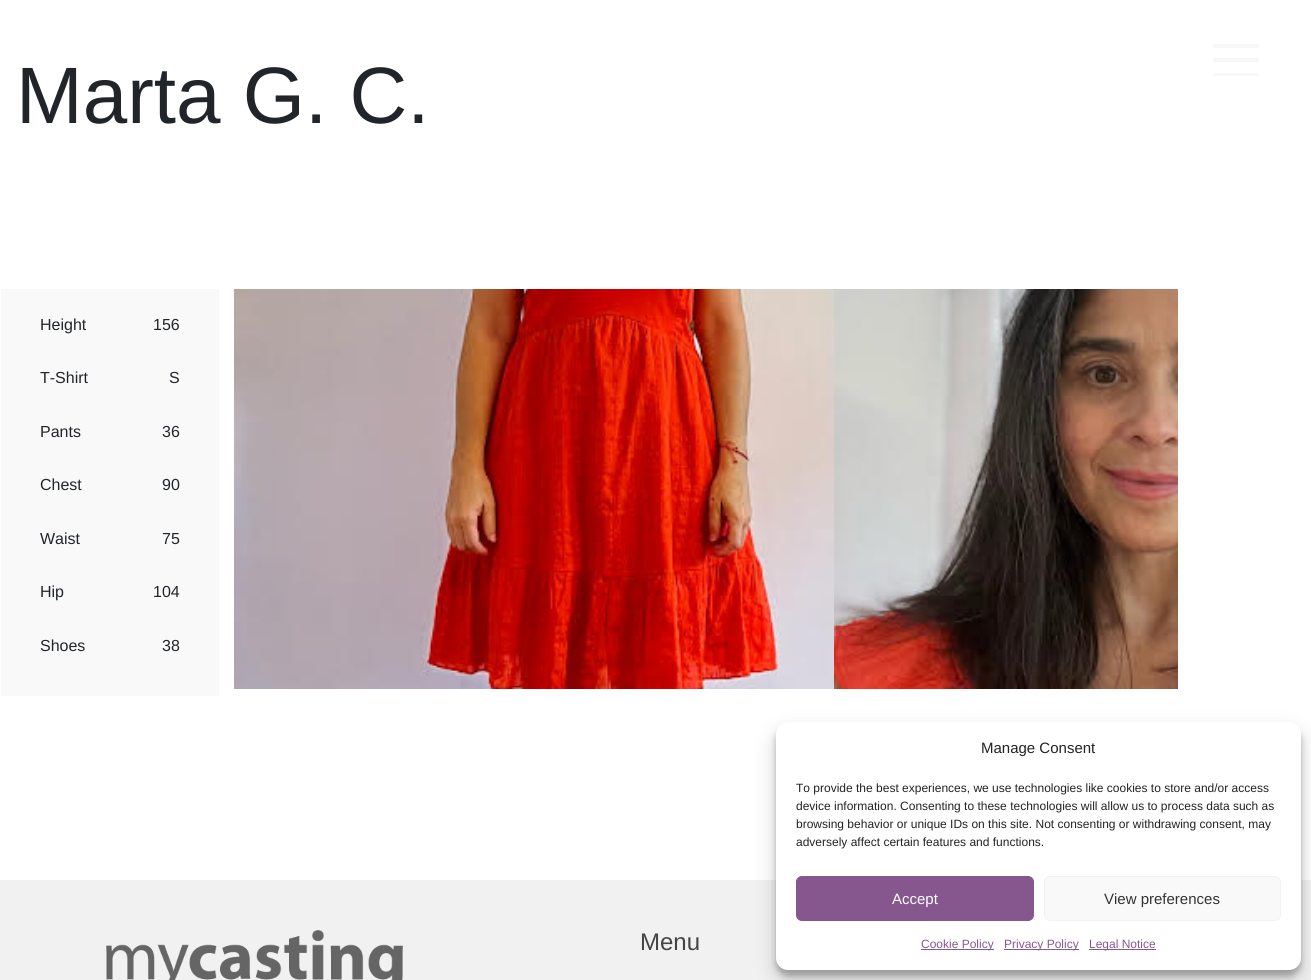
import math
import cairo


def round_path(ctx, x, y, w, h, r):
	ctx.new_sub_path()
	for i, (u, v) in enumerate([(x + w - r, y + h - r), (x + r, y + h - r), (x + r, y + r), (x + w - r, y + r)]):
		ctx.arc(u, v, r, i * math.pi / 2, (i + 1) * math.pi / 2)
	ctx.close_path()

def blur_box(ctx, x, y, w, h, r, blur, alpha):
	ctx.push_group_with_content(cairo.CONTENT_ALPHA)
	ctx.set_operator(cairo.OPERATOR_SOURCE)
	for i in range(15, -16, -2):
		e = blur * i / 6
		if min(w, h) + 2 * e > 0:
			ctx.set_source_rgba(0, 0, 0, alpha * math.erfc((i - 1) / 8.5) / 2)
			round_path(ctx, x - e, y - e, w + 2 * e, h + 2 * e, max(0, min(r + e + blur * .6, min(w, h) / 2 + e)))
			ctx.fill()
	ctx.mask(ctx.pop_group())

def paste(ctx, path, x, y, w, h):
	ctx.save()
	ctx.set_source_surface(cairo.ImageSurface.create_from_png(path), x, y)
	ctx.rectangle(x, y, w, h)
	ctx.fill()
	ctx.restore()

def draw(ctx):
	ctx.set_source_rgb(1, 1, 1)
	ctx.paint()
	ctx.set_source_rgb(0.969, 0.969, 0.969)
	round_path(ctx, 1213, 58, 46, 4, 1)
	ctx.fill()
	round_path(ctx, 1213, 44, 46, 4, 1)
	ctx.fill()
	round_path(ctx, 1213, 73, 46, 3, 1)
	ctx.fill()
	ctx.select_font_face('Liberation Sans')
	ctx.set_font_size(80)
	ctx.set_source_rgb(0.129, 0.145, 0.161)
	ctx.move_to(16, 123)
	ctx.show_text('Marta G. C.')
	ctx.set_source_rgb(0.973, 0.976, 0.98)
	ctx.rectangle(1, 289, 218, 407)
	ctx.fill()
	ctx.set_font_size(16)
	ctx.set_source_rgb(0.129, 0.145, 0.161)
	for x, y, s in [
		(40, 330, 'Height'),
		(153, 330, '156'),
		(40, 383, 'T-Shirt'),
		(169, 383, 'S'),
		(40, 437, 'Pants'),
		(162, 437, '36'),
		(40, 490, 'Chest'),
		(162, 490, '90'),
		(40, 544, 'Waist'),
		(162, 544, '75'),
		(40, 597, 'Hip'),
		(153, 597, '104'),
		(40, 651, 'Shoes'),
		(162, 651, '38'),
	]:
		ctx.move_to(x, y)
		ctx.show_text(s)
	paste(ctx, 'media/1.png', 234, 289, 600, 400)
	paste(ctx, 'media/2.png', 834, 289, 344, 400)
	ctx.set_source_rgb(0.945, 0.945, 0.945)
	ctx.rectangle(0, 880, 1311, 100)
	ctx.fill()
	paste(ctx, 'media/3.png', 106, 930, 297, 50)
	ctx.set_font_size(24)
	ctx.set_source_rgb(0.267, 0.267, 0.267)
	ctx.move_to(640, 950)
	ctx.show_text('Menu')
	ctx.set_source_rgb(0, 0, 0)
	blur_box(ctx, 776, 728, 525, 248, 12, 3, 0.23)
	blur_box(ctx, 776, 732, 525, 248, 12, 10, 0.19)
	ctx.set_source_rgb(1, 1, 1)
	round_path(ctx, 776, 722, 525, 248, 12)
	ctx.fill()
	ctx.set_font_size(15)
	ctx.set_source_rgb(0.133, 0.133, 0.133)
	ctx.move_to(981, 753)
	ctx.show_text('Manage Consent')
	ctx.set_font_size(12)
	for x, y, s in [
		(796, 792, 'To provide the best experiences, we use technologies like cookies to store and/or access'),
		(796, 810, 'device information. Consenting to these technologies will allow us to process data such as'),
		(796, 828, 'browsing behavior or unique IDs on this site. Not consenting or withdrawing consent, may'),
		(796, 846, 'adversely affect certain features and functions.'),
	]:
		ctx.move_to(x, y)
		ctx.show_text(s)
	ctx.set_source_rgb(0.525, 0.341, 0.561)
	round_path(ctx, 796.5, 876.5, 237, 44, 5.5)
	ctx.fill_preserve()
	ctx.set_line_width(1)
	ctx.stroke()
	ctx.set_font_size(15)
	ctx.set_source_rgb(1, 1, 1)
	ctx.move_to(892, 904)
	ctx.show_text('Accept')
	ctx.set_source_rgb(0.976, 0.976, 0.976)
	round_path(ctx, 1044.5, 876.5, 236, 44, 5.5)
	ctx.fill_preserve()
	ctx.set_source_rgb(0.949, 0.949, 0.949)
	ctx.stroke()
	ctx.set_source_rgb(0.2, 0.2, 0.2)
	ctx.move_to(1104, 904)
	ctx.show_text('View preferences')
	ctx.set_source_rgb(0.525, 0.341, 0.561)
	ctx.rectangle(921, 949, 73, 1)
	ctx.fill()
	ctx.set_font_size(12)
	ctx.move_to(921, 948)
	ctx.show_text('Cookie Policy')
	ctx.rectangle(1004, 949, 75, 1)
	ctx.fill()
	ctx.move_to(1004, 948)
	ctx.show_text('Privacy Policy')
	ctx.rectangle(1089, 949, 67, 1)
	ctx.fill()
	ctx.move_to(1089, 948)
	ctx.show_text('Legal Notice')


surface = cairo.ImageSurface(cairo.FORMAT_RGB24, 1311, 980)
ctx = cairo.Context(surface)
options = cairo.FontOptions()
options.set_hint_metrics(cairo.HINT_METRICS_OFF)
options.set_hint_style(cairo.HINT_STYLE_NONE)
ctx.set_font_options(options)
ctx.set_miter_limit(4)
draw(ctx)
surface.write_to_png('image.png')
